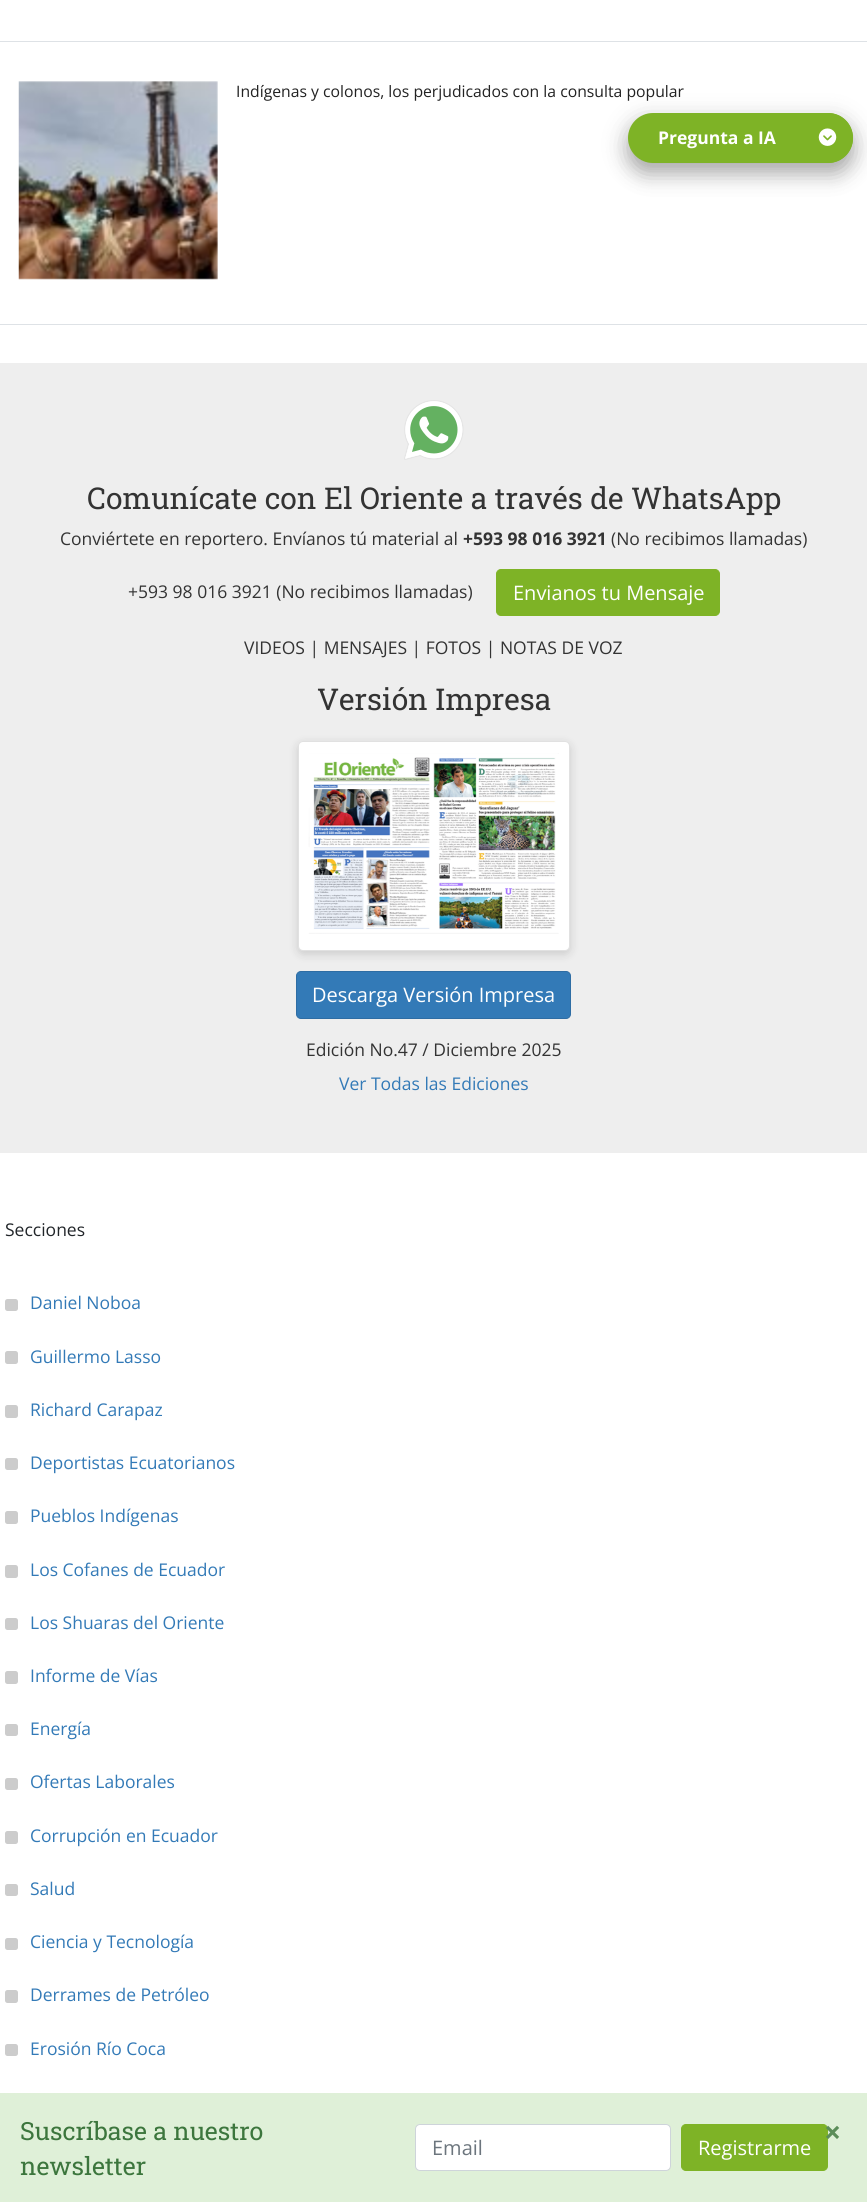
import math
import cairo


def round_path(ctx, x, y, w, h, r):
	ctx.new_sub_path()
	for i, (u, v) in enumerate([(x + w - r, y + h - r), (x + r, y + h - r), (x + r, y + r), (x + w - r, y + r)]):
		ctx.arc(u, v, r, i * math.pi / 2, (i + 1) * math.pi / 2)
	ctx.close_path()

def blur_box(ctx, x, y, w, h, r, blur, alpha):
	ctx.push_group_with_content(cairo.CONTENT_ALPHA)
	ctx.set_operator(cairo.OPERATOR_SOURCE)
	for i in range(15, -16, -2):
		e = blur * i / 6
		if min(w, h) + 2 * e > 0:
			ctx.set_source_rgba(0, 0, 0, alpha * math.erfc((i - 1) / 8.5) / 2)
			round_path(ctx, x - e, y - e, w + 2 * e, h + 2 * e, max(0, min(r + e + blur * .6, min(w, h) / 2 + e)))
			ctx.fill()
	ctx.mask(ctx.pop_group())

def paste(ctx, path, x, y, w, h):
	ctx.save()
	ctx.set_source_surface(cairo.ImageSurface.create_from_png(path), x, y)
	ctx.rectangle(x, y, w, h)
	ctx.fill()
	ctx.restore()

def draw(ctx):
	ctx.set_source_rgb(1, 1, 1)
	ctx.paint()
	ctx.set_source_rgb(0.871, 0.886, 0.902)
	ctx.rectangle(0, 41, 867, 1)
	ctx.fill()
	ctx.rectangle(0, 324, 867, 1)
	ctx.fill()
	paste(ctx, 'media/1.png', 18, 81, 200, 199)
	ctx.select_font_face('Open Sans')
	ctx.set_font_size(15.75)
	ctx.set_source_rgb(0.133, 0.133, 0.133)
	ctx.move_to(236, 97)
	ctx.show_text('Indígenas y colonos, los perjudicados con la consulta popular')
	ctx.set_source_rgb(0, 0, 0)
	blur_box(ctx, 628, 120, 225, 50, 25, 12.5, 0.19)
	blur_box(ctx, 628, 125, 225, 50, 25, 10, 0.2)
	ctx.set_source_rgb(0.494, 0.702, 0.149)
	round_path(ctx, 628, 113, 225, 50, 25)
	ctx.fill()
	ctx.select_font_face('Open Sans', cairo.FONT_SLANT_NORMAL, cairo.FONT_WEIGHT_BOLD)
	ctx.set_font_size(17.5)
	ctx.set_source_rgb(1, 1, 1)
	ctx.move_to(658, 144)
	ctx.show_text('Pregunta a IA')
	ctx.set_source_rgb(0.494, 0.702, 0.149)
	ctx.new_path()
	ctx.move_to(803, 113)
	ctx.line_to(828, 113)
	ctx.curve_to(842, 113, 853, 124, 853, 138)
	ctx.curve_to(853, 152, 842, 163, 828, 163)
	ctx.line_to(803, 163)
	ctx.close_path()
	ctx.fill()
	paste(ctx, 'media/2.png', 818, 128, 19, 18)
	ctx.set_source_rgb(0.933, 0.933, 0.933)
	ctx.rectangle(0, 363, 867, 790)
	ctx.fill()
	paste(ctx, 'media/3.png', 404, 400, 60, 60)
	ctx.select_font_face('Roboto Slab')
	ctx.set_font_size(30)
	ctx.set_source_rgb(0.2, 0.2, 0.2)
	ctx.move_to(87, 509)
	ctx.show_text('Comunícate con El Oriente a través de WhatsApp')
	ctx.select_font_face('Open Sans')
	ctx.set_font_size(17.5)
	ctx.move_to(60, 545)
	ctx.show_text('Conviértete en reportero. Envíanos tú material al')
	ctx.select_font_face('Open Sans', cairo.FONT_SLANT_NORMAL, cairo.FONT_WEIGHT_BOLD)
	ctx.move_to(463, 545)
	ctx.show_text('+593 98 016 3921')
	ctx.select_font_face('Open Sans')
	ctx.move_to(611, 545)
	ctx.show_text('(No recibimos llamadas)')
	ctx.move_to(128, 598)
	ctx.show_text('+593 98 016 3921 (No recibimos llamadas)')
	ctx.set_source_rgb(0.494, 0.702, 0.149)
	round_path(ctx, 496.5, 569.5, 223, 46, 4.5)
	ctx.fill_preserve()
	ctx.set_line_width(1)
	ctx.stroke()
	ctx.set_font_size(20)
	ctx.set_source_rgb(1, 1, 1)
	ctx.move_to(513, 600)
	ctx.show_text('Envianos tu Mensaje')
	ctx.set_font_size(17.5)
	ctx.set_source_rgb(0.2, 0.2, 0.2)
	ctx.move_to(244, 654)
	ctx.show_text('VIDEOS | MENSAJES | FOTOS | NOTAS DE VOZ')
	ctx.select_font_face('Roboto Slab')
	ctx.set_font_size(30)
	ctx.move_to(317, 710)
	ctx.show_text('Versión Impresa')
	ctx.set_source_rgb(0, 0, 0)
	blur_box(ctx, 298, 744, 272, 210, 5, 5, 0.15)
	ctx.set_source_rgb(1, 1, 1)
	round_path(ctx, 298, 741, 272, 210, 5)
	ctx.fill()
	round_path(ctx, 298.5, 741.5, 271, 209, 4.5)
	ctx.set_source_rgba(0, 0, 0, 0.12)
	ctx.stroke()
	paste(ctx, 'media/4.png', 308, 753, 251, 181)
	ctx.set_source_rgb(0.2, 0.478, 0.718)
	round_path(ctx, 296.5, 971.5, 274, 47, 4.5)
	ctx.fill_preserve()
	ctx.set_source_rgb(0.18, 0.427, 0.643)
	ctx.stroke()
	ctx.select_font_face('Open Sans')
	ctx.set_font_size(20)
	ctx.set_source_rgb(1, 1, 1)
	ctx.move_to(312, 1002)
	ctx.show_text('Descarga Versión Impresa')
	ctx.set_font_size(17.5)
	ctx.set_source_rgb(0.2, 0.2, 0.2)
	ctx.move_to(306, 1056)
	ctx.show_text('Edición No.47 / Diciembre 2025')
	ctx.set_source_rgb(0.2, 0.478, 0.718)
	ctx.move_to(339, 1090)
	ctx.show_text('Ver Todas las Ediciones')
	ctx.set_source_rgb(0.129, 0.145, 0.161)
	ctx.move_to(5, 1236)
	ctx.show_text('Secciones')
	ctx.set_source_rgb(0.8, 0.8, 0.8)
	round_path(ctx, 5, 1299, 13, 12, 2.5)
	ctx.fill()
	ctx.set_source_rgb(0.2, 0.478, 0.718)
	ctx.move_to(30, 1309)
	ctx.show_text('Daniel Noboa')
	ctx.set_source_rgb(0.8, 0.8, 0.8)
	round_path(ctx, 5, 1351, 13, 13, 2.5)
	ctx.fill()
	ctx.set_source_rgb(0.2, 0.478, 0.718)
	ctx.move_to(30, 1363)
	ctx.show_text('Guillermo Lasso')
	ctx.set_source_rgb(0.8, 0.8, 0.8)
	round_path(ctx, 5, 1405, 13, 13, 2.5)
	ctx.fill()
	ctx.set_source_rgb(0.2, 0.478, 0.718)
	ctx.move_to(30, 1416)
	ctx.show_text('Richard Carapaz')
	ctx.set_source_rgb(0.8, 0.8, 0.8)
	round_path(ctx, 5, 1458, 13, 12, 2.5)
	ctx.fill()
	ctx.set_source_rgb(0.2, 0.478, 0.718)
	ctx.move_to(30, 1469)
	ctx.show_text('Deportistas Ecuatorianos')
	ctx.set_source_rgb(0.8, 0.8, 0.8)
	round_path(ctx, 5, 1511, 13, 13, 2.5)
	ctx.fill()
	ctx.set_source_rgb(0.2, 0.478, 0.718)
	ctx.move_to(30, 1522)
	ctx.show_text('Pueblos Indígenas')
	ctx.set_source_rgb(0.8, 0.8, 0.8)
	round_path(ctx, 5, 1565, 13, 13, 2.5)
	ctx.fill()
	ctx.set_source_rgb(0.2, 0.478, 0.718)
	ctx.move_to(30, 1576)
	ctx.show_text('Los Cofanes de Ecuador')
	ctx.set_source_rgb(0.8, 0.8, 0.8)
	round_path(ctx, 5, 1618, 13, 12, 2.5)
	ctx.fill()
	ctx.set_source_rgb(0.2, 0.478, 0.718)
	ctx.move_to(30, 1629)
	ctx.show_text('Los Shuaras del Oriente')
	ctx.set_source_rgb(0.8, 0.8, 0.8)
	round_path(ctx, 5, 1671, 13, 13, 2.5)
	ctx.fill()
	ctx.set_source_rgb(0.2, 0.478, 0.718)
	ctx.move_to(30, 1682)
	ctx.show_text('Informe de Vías')
	ctx.set_source_rgb(0.8, 0.8, 0.8)
	round_path(ctx, 5, 1724, 13, 12, 2.5)
	ctx.fill()
	ctx.set_source_rgb(0.2, 0.478, 0.718)
	ctx.move_to(30, 1735)
	ctx.show_text('Energía')
	ctx.set_source_rgb(0.8, 0.8, 0.8)
	round_path(ctx, 5, 1778, 13, 12, 2.5)
	ctx.fill()
	ctx.set_source_rgb(0.2, 0.478, 0.718)
	ctx.move_to(30, 1788)
	ctx.show_text('Ofertas Laborales')
	ctx.set_source_rgb(0.8, 0.8, 0.8)
	round_path(ctx, 5, 1831, 13, 13, 2.5)
	ctx.fill()
	ctx.set_source_rgb(0.2, 0.478, 0.718)
	ctx.move_to(30, 1842)
	ctx.show_text('Corrupción en Ecuador')
	ctx.set_source_rgb(0.8, 0.8, 0.8)
	round_path(ctx, 5, 1884, 13, 12, 2.5)
	ctx.fill()
	ctx.set_source_rgb(0.2, 0.478, 0.718)
	ctx.move_to(30, 1895)
	ctx.show_text('Salud')
	ctx.set_source_rgb(0.8, 0.8, 0.8)
	round_path(ctx, 5, 1938, 13, 12, 2.5)
	ctx.fill()
	ctx.set_source_rgb(0.2, 0.478, 0.718)
	ctx.move_to(30, 1948)
	ctx.show_text('Ciencia y Tecnología')
	ctx.set_source_rgb(0.8, 0.8, 0.8)
	round_path(ctx, 5, 1990, 13, 13, 2.5)
	ctx.fill()
	ctx.set_source_rgb(0.2, 0.478, 0.718)
	ctx.move_to(30, 2001)
	ctx.show_text('Derrames de Petróleo')
	ctx.set_source_rgb(0.8, 0.8, 0.8)
	round_path(ctx, 5, 2044, 13, 12, 2.5)
	ctx.fill()
	ctx.set_source_rgb(0.2, 0.478, 0.718)
	ctx.move_to(30, 2055)
	ctx.show_text('Erosión Río Coca')
	ctx.set_source_rgb(0.875, 0.941, 0.847)
	ctx.rectangle(0, 2093, 867, 109)
	ctx.fill()
	ctx.select_font_face('Roboto Slab')
	ctx.set_font_size(25)
	ctx.set_source_rgb(0.235, 0.463, 0.239)
	ctx.move_to(20, 2140)
	ctx.show_text('Suscríbase a nuestro')
	ctx.move_to(20, 2175)
	ctx.show_text('newsletter')
	ctx.set_source_rgb(1, 1, 1)
	round_path(ctx, 415.5, 2124.5, 255, 46, 4.5)
	ctx.fill_preserve()
	ctx.set_source_rgb(0.808, 0.831, 0.855)
	ctx.stroke()
	ctx.select_font_face('Open Sans')
	ctx.set_font_size(20)
	ctx.set_source_rgb(0.424, 0.459, 0.49)
	ctx.move_to(432, 2155)
	ctx.show_text('Email')
	ctx.set_source_rgb(0.494, 0.702, 0.149)
	round_path(ctx, 681.5, 2124.5, 146, 46, 4.5)
	ctx.fill_preserve()
	ctx.stroke()
	ctx.set_source_rgb(1, 1, 1)
	ctx.move_to(698, 2155)
	ctx.show_text('Registrarme')
	ctx.select_font_face('Open Sans', cairo.FONT_SLANT_NORMAL, cairo.FONT_WEIGHT_BOLD)
	ctx.set_font_size(30)
	ctx.set_source_rgb(0.357, 0.553, 0.349)
	ctx.move_to(824, 2143)
	ctx.show_text('×')


surface = cairo.ImageSurface(cairo.FORMAT_RGB24, 867, 2202)
ctx = cairo.Context(surface)
options = cairo.FontOptions()
options.set_hint_metrics(cairo.HINT_METRICS_OFF)
options.set_hint_style(cairo.HINT_STYLE_NONE)
ctx.set_font_options(options)
ctx.set_miter_limit(4)
draw(ctx)
surface.write_to_png('image.png')
